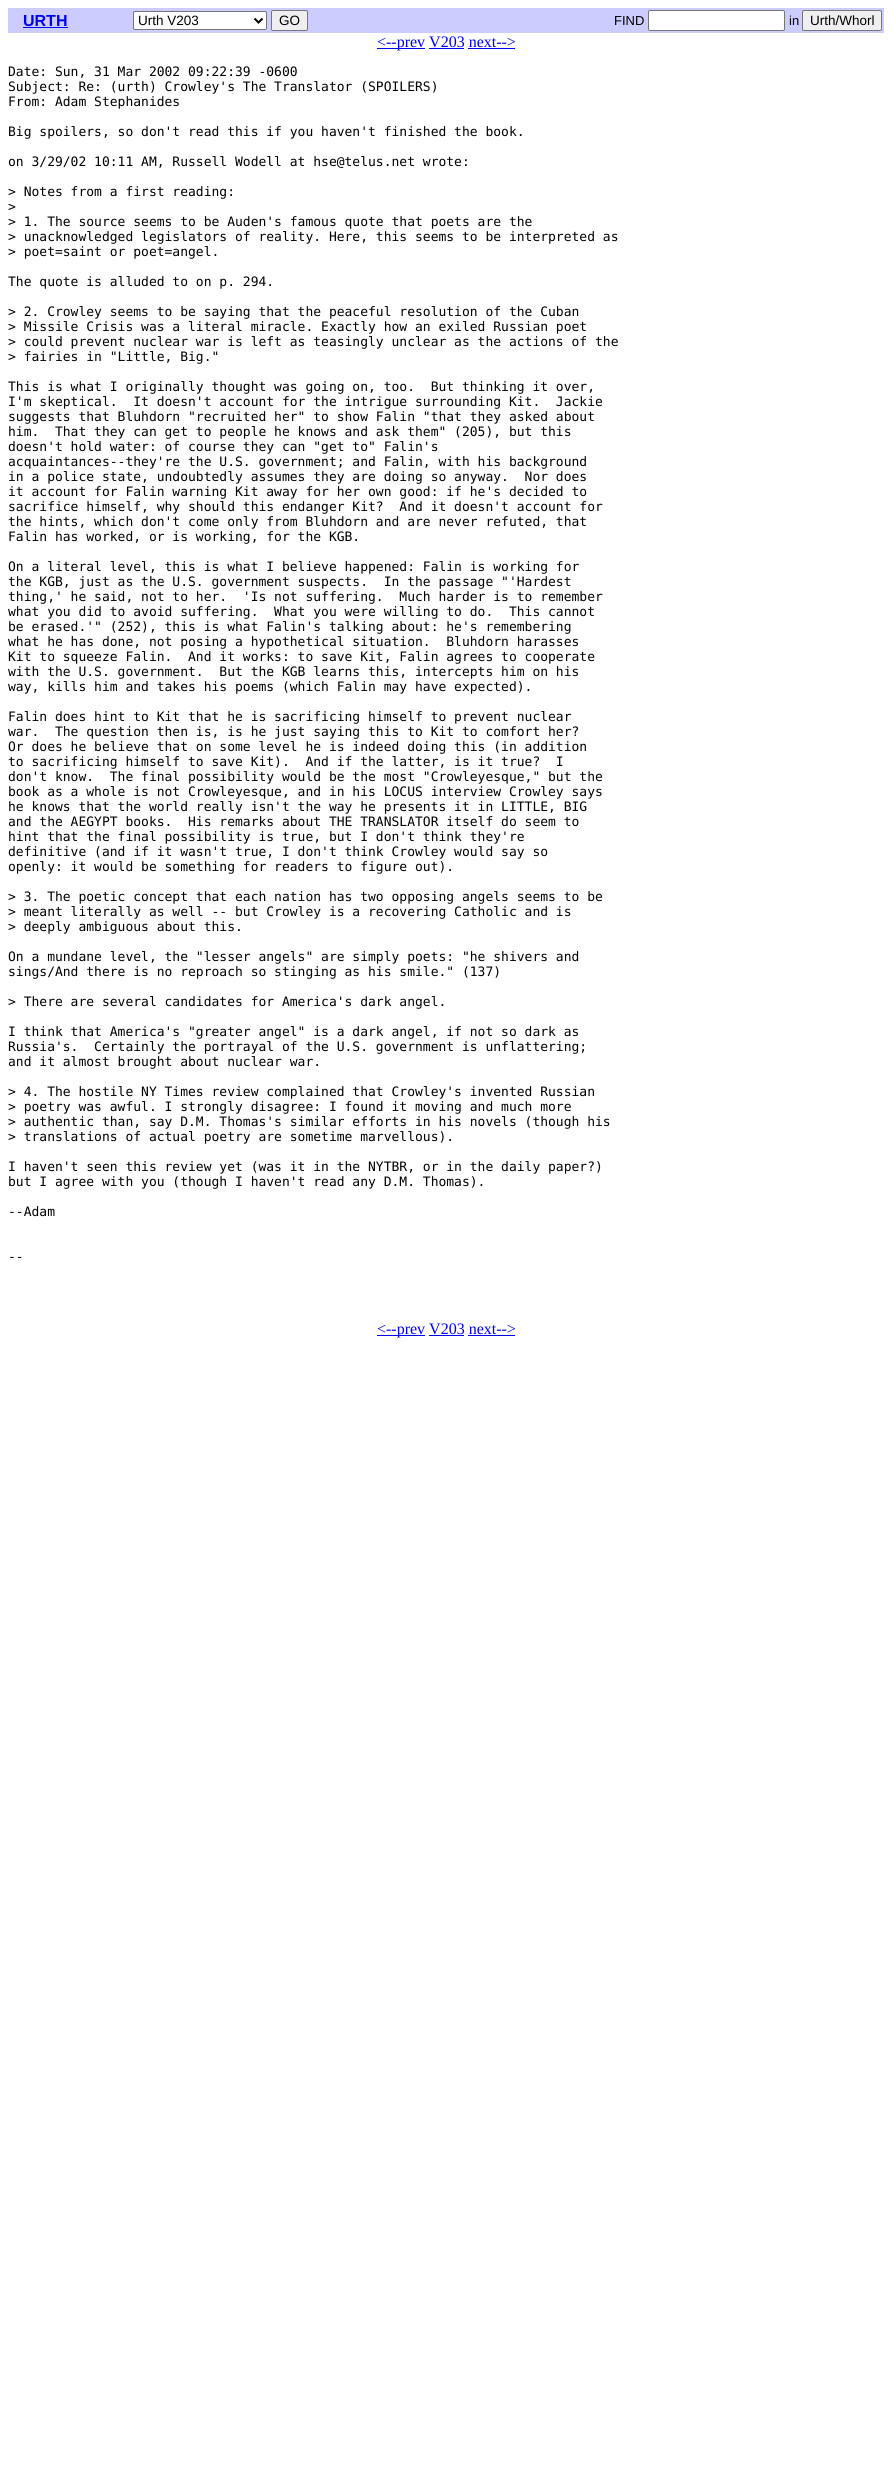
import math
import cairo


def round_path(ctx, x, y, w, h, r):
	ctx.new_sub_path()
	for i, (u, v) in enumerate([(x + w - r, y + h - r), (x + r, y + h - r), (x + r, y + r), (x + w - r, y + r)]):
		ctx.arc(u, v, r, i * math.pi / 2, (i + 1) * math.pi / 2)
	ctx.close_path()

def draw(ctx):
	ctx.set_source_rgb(1, 1, 1)
	ctx.paint()
	ctx.set_source_rgb(0.8, 0.8, 1)
	ctx.rectangle(8, 8, 876, 25)
	ctx.fill()
	ctx.select_font_face('Liberation Sans', cairo.FONT_SLANT_NORMAL, cairo.FONT_WEIGHT_BOLD)
	ctx.set_font_size(16)
	ctx.set_source_rgb(0, 0, 0.933)
	ctx.move_to(23, 26)
	ctx.show_text('URTH')
	ctx.rectangle(23, 27, 45, 1)
	ctx.fill()
	ctx.set_source_rgb(1, 1, 1)
	round_path(ctx, 133.5, 11.5, 133, 18, 1.5)
	ctx.fill_preserve()
	ctx.set_source_rgb(0.463, 0.463, 0.463)
	ctx.set_line_width(1)
	ctx.stroke()
	ctx.new_path()
	ctx.move_to(254.5, 18.5)
	ctx.line_to(258.5, 22.5)
	ctx.line_to(262.5, 18.5)
	ctx.set_source_rgb(0, 0, 0)
	ctx.set_line_width(2)
	ctx.stroke()
	ctx.select_font_face('Liberation Sans')
	ctx.set_font_size(13.5)
	ctx.move_to(138, 25)
	ctx.show_text('Urth V203')
	ctx.set_source_rgb(0.937, 0.937, 0.937)
	round_path(ctx, 271.5, 10.5, 36, 20, 1.5)
	ctx.fill_preserve()
	ctx.set_source_rgb(0.463, 0.463, 0.463)
	ctx.set_line_width(1)
	ctx.stroke()
	ctx.set_source_rgb(0, 0, 0)
	ctx.move_to(279, 25)
	ctx.show_text('GO')
	ctx.set_font_size(13)
	ctx.move_to(614, 25)
	ctx.show_text('FIND')
	ctx.set_source_rgb(1, 1, 1)
	round_path(ctx, 648.5, 10.5, 136, 20, 1.5)
	ctx.fill_preserve()
	ctx.set_source_rgb(0.463, 0.463, 0.463)
	ctx.stroke()
	ctx.set_source_rgb(0, 0, 0)
	ctx.move_to(789, 25)
	ctx.show_text('in')
	ctx.set_source_rgb(0.937, 0.937, 0.937)
	round_path(ctx, 802.5, 10.5, 79, 20, 1.5)
	ctx.fill_preserve()
	ctx.set_source_rgb(0.463, 0.463, 0.463)
	ctx.stroke()
	ctx.set_font_size(13.5)
	ctx.set_source_rgb(0, 0, 0)
	ctx.move_to(810, 25)
	ctx.show_text('Urth/Whorl')
	ctx.set_source_rgb(0, 0, 0.933)
	ctx.rectangle(377, 48, 48, 1)
	ctx.fill()
	ctx.select_font_face('Liberation Serif')
	ctx.set_font_size(16)
	ctx.move_to(377, 47)
	ctx.show_text('<--prev V203 next-->')
	ctx.rectangle(429, 48, 35, 1)
	ctx.fill()
	ctx.rectangle(468, 48, 47, 1)
	ctx.fill()
	ctx.select_font_face('DejaVu Sans Mono')
	ctx.set_font_size(13)
	ctx.set_source_rgb(0, 0, 0)
	for x, y, s in [
		(8, 76, 'Date: Sun, 31 Mar 2002 09:22:39 -0600'),
		(8, 91, 'Subject: Re: (urth) Crowley\'s The Translator (SPOILERS)'),
		(8, 106, 'From: Adam Stephanides'),
		(8, 136, 'Big spoilers, so don\'t read this if you haven\'t finished the book.'),
		(8, 166, 'on 3/29/02 10:11 AM, Russell Wodell at hse@telus.net wrote:'),
		(8, 196, '> Notes from a first reading:'),
		(8, 211, '>'),
		(8, 226, '> 1. The source seems to be Auden\'s famous quote that poets are the'),
		(8, 241, '> unacknowledged legislators of reality. Here, this seems to be interpreted as'),
		(8, 256, '> poet=saint or poet=angel.'),
		(8, 286, 'The quote is alluded to on p. 294.'),
		(8, 316, '> 2. Crowley seems to be saying that the peaceful resolution of the Cuban'),
		(8, 331, '> Missile Crisis was a literal miracle. Exactly how an exiled Russian poet'),
		(8, 346, '> could prevent nuclear war is left as teasingly unclear as the actions of the'),
		(8, 361, '> fairies in "Little, Big."'),
		(8, 391, 'This is what I originally thought was going on, too.  But thinking it over,'),
		(8, 406, 'I\'m skeptical.  It doesn\'t account for the intrigue surrounding Kit.  Jackie'),
		(8, 421, 'suggests that Bluhdorn "recruited her" to show Falin "that they asked about'),
		(8, 436, 'him.  That they can get to people he knows and ask them" (205), but this'),
		(8, 451, 'doesn\'t hold water: of course they can "get to" Falin\'s'),
		(8, 466, 'acquaintances--they\'re the U.S. government; and Falin, with his background'),
		(8, 481, 'in a police state, undoubtedly assumes they are doing so anyway.  Nor does'),
		(8, 496, 'it account for Falin warning Kit away for her own good: if he\'s decided to'),
		(8, 511, 'sacrifice himself, why should this endanger Kit?  And it doesn\'t account for'),
		(8, 526, 'the hints, which don\'t come only from Bluhdorn and are never refuted, that'),
		(8, 541, 'Falin has worked, or is working, for the KGB.'),
		(8, 571, 'On a literal level, this is what I believe happened: Falin is working for'),
		(8, 586, 'the KGB, just as the U.S. government suspects.  In the passage "\'Hardest'),
		(8, 601, 'thing,\' he said, not to her.  \'Is not suffering.  Much harder is to remember'),
		(8, 616, 'what you did to avoid suffering.  What you were willing to do.  This cannot'),
		(8, 631, 'be erased.\'" (252), this is what Falin\'s talking about: he\'s remembering'),
		(8, 646, 'what he has done, not posing a hypothetical situation.  Bluhdorn harasses'),
		(8, 661, 'Kit to squeeze Falin.  And it works: to save Kit, Falin agrees to cooperate'),
		(8, 676, 'with the U.S. government.  But the KGB learns this, intercepts him on his'),
		(8, 691, 'way, kills him and takes his poems (which Falin may have expected).'),
		(8, 721, 'Falin does hint to Kit that he is sacrificing himself to prevent nuclear'),
		(8, 736, 'war.  The question then is, is he just saying this to Kit to comfort her?'),
		(8, 751, 'Or does he believe that on some level he is indeed doing this (in addition'),
		(8, 766, 'to sacrificing himself to save Kit).  And if the latter, is it true?  I'),
		(8, 781, 'don\'t know.  The final possibility would be the most "Crowleyesque," but the'),
		(8, 796, 'book as a whole is not Crowleyesque, and in his LOCUS interview Crowley says'),
		(8, 811, 'he knows that the world really isn\'t the way he presents it in LITTLE, BIG'),
		(8, 826, 'and the AEGYPT books.  His remarks about THE TRANSLATOR itself do seem to'),
		(8, 841, 'hint that the final possibility is true, but I don\'t think they\'re'),
		(8, 856, 'definitive (and if it wasn\'t true, I don\'t think Crowley would say so'),
		(8, 871, 'openly: it would be something for readers to figure out).'),
		(8, 901, '> 3. The poetic concept that each nation has two opposing angels seems to be'),
		(8, 916, '> meant literally as well -- but Crowley is a recovering Catholic and is'),
		(8, 931, '> deeply ambiguous about this.'),
		(8, 961, 'On a mundane level, the "lesser angels" are simply poets: "he shivers and'),
		(8, 976, 'sings/And there is no reproach so stinging as his smile." (137)'),
		(8, 1006, '> There are several candidates for America\'s dark angel.'),
		(8, 1036, 'I think that America\'s "greater angel" is a dark angel, if not so dark as'),
		(8, 1051, 'Russia\'s.  Certainly the portrayal of the U.S. government is unflattering;'),
		(8, 1066, 'and it almost brought about nuclear war.'),
		(8, 1096, '> 4. The hostile NY Times review complained that Crowley\'s invented Russian'),
		(8, 1111, '> poetry was awful. I strongly disagree: I found it moving and much more'),
		(8, 1126, '> authentic than, say D.M. Thomas\'s similar efforts in his novels (though his'),
		(8, 1141, '> translations of actual poetry are sometime marvellous).'),
		(8, 1171, 'I haven\'t seen this review yet (was it in the NYTBR, or in the daily paper?)'),
		(8, 1186, 'but I agree with you (though I haven\'t read any D.M. Thomas).'),
		(8, 1216, '--Adam'),
		(8, 1261, '--'),
	]:
		ctx.move_to(x, y)
		ctx.show_text(s)
	ctx.set_source_rgb(0, 0, 0.933)
	ctx.rectangle(377, 1335, 48, 1)
	ctx.fill()
	ctx.select_font_face('Liberation Serif')
	ctx.set_font_size(16)
	ctx.move_to(377, 1334)
	ctx.show_text('<--prev V203 next-->')
	ctx.rectangle(429, 1335, 35, 1)
	ctx.fill()
	ctx.rectangle(468, 1335, 47, 1)
	ctx.fill()


surface = cairo.ImageSurface(cairo.FORMAT_RGB24, 892, 2480)
ctx = cairo.Context(surface)
options = cairo.FontOptions()
options.set_hint_metrics(cairo.HINT_METRICS_OFF)
options.set_hint_style(cairo.HINT_STYLE_NONE)
ctx.set_font_options(options)
ctx.set_miter_limit(4)
draw(ctx)
surface.write_to_png('image.png')
